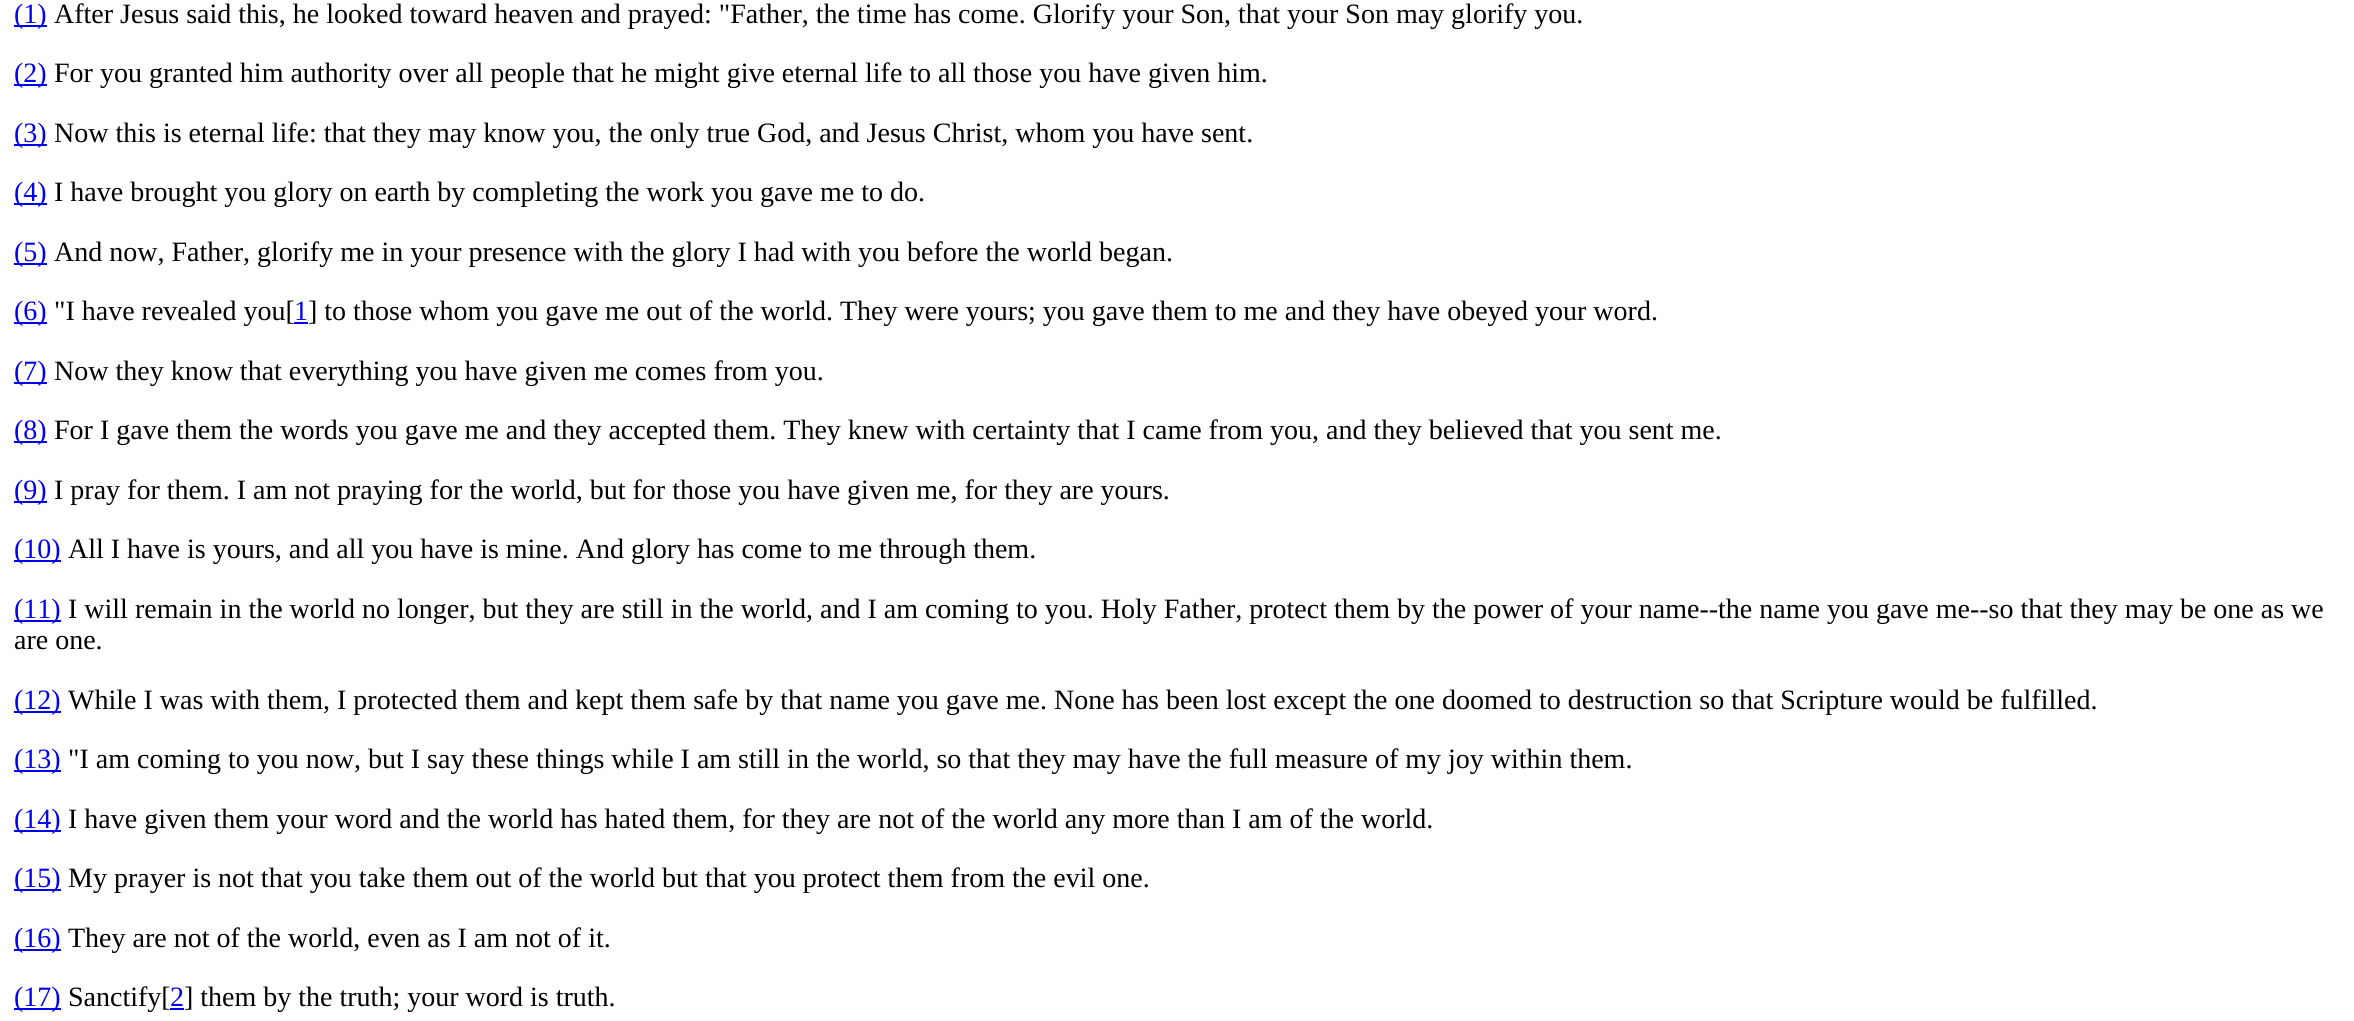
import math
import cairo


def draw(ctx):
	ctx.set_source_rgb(1, 1, 1)
	ctx.paint()
	ctx.set_source_rgb(0, 0, 0.933)
	ctx.rectangle(14, 25, 33, 2)
	ctx.fill()
	ctx.select_font_face('Liberation Serif')
	ctx.set_font_size(28)
	ctx.move_to(14, 23)
	ctx.show_text('(1)')
	ctx.set_source_rgb(0, 0, 0)
	ctx.move_to(54, 23)
	ctx.show_text('After Jesus said this, he looked toward heaven and prayed: "Father, the time has come. Glorify your Son, that your Son may glorify you.')
	ctx.set_source_rgb(0, 0, 0.933)
	ctx.rectangle(14, 84, 33, 2)
	ctx.fill()
	ctx.move_to(14, 82)
	ctx.show_text('(2)')
	ctx.set_source_rgb(0, 0, 0)
	ctx.move_to(54, 82)
	ctx.show_text('For you granted him authority over all people that he might give eternal life to all those you have given him.')
	ctx.set_source_rgb(0, 0, 0.933)
	ctx.rectangle(14, 144, 33, 2)
	ctx.fill()
	ctx.move_to(14, 142)
	ctx.show_text('(3)')
	ctx.set_source_rgb(0, 0, 0)
	ctx.move_to(54, 142)
	ctx.show_text('Now this is eternal life: that they may know you, the only true God, and Jesus Christ, whom you have sent.')
	ctx.set_source_rgb(0, 0, 0.933)
	ctx.rectangle(14, 203, 33, 2)
	ctx.fill()
	ctx.move_to(14, 201)
	ctx.show_text('(4)')
	ctx.set_source_rgb(0, 0, 0)
	ctx.move_to(54, 201)
	ctx.show_text('I have brought you glory on earth by completing the work you gave me to do.')
	ctx.set_source_rgb(0, 0, 0.933)
	ctx.rectangle(14, 263, 33, 2)
	ctx.fill()
	ctx.move_to(14, 261)
	ctx.show_text('(5)')
	ctx.set_source_rgb(0, 0, 0)
	ctx.move_to(54, 261)
	ctx.show_text('And now, Father, glorify me in your presence with the glory I had with you before the world began.')
	ctx.set_source_rgb(0, 0, 0.933)
	ctx.rectangle(14, 322, 33, 2)
	ctx.fill()
	ctx.move_to(14, 320)
	ctx.show_text('(6)')
	ctx.set_source_rgb(0, 0, 0)
	ctx.move_to(54, 320)
	ctx.show_text('"I have revealed you[')
	ctx.set_source_rgb(0, 0, 0.933)
	ctx.move_to(294, 320)
	ctx.show_text('1')
	ctx.rectangle(294, 322, 14, 2)
	ctx.fill()
	ctx.set_source_rgb(0, 0, 0)
	ctx.move_to(308, 320)
	ctx.show_text('] to those whom you gave me out of the world. They were yours; you gave them to me and they have obeyed your word.')
	ctx.set_source_rgb(0, 0, 0.933)
	ctx.rectangle(14, 382, 33, 2)
	ctx.fill()
	ctx.move_to(14, 380)
	ctx.show_text('(7)')
	ctx.set_source_rgb(0, 0, 0)
	ctx.move_to(54, 380)
	ctx.show_text('Now they know that everything you have given me comes from you.')
	ctx.set_source_rgb(0, 0, 0.933)
	ctx.rectangle(14, 441, 33, 2)
	ctx.fill()
	ctx.move_to(14, 439)
	ctx.show_text('(8)')
	ctx.set_source_rgb(0, 0, 0)
	ctx.move_to(54, 439)
	ctx.show_text('For I gave them the words you gave me and they accepted them. They knew with certainty that I came from you, and they believed that you sent me.')
	ctx.set_source_rgb(0, 0, 0.933)
	ctx.rectangle(14, 501, 33, 2)
	ctx.fill()
	ctx.move_to(14, 499)
	ctx.show_text('(9)')
	ctx.set_source_rgb(0, 0, 0)
	ctx.move_to(54, 499)
	ctx.show_text('I pray for them. I am not praying for the world, but for those you have given me, for they are yours.')
	ctx.set_source_rgb(0, 0, 0.933)
	ctx.rectangle(14, 560, 47, 2)
	ctx.fill()
	ctx.move_to(14, 558)
	ctx.show_text('(10)')
	ctx.set_source_rgb(0, 0, 0)
	ctx.move_to(68, 558)
	ctx.show_text('All I have is yours, and all you have is mine. And glory has come to me through them.')
	ctx.set_source_rgb(0, 0, 0.933)
	ctx.rectangle(14, 620, 47, 2)
	ctx.fill()
	ctx.move_to(14, 618)
	ctx.show_text('(11)')
	ctx.set_source_rgb(0, 0, 0)
	ctx.move_to(68, 618)
	ctx.show_text('I will remain in the world no longer, but they are still in the world, and I am coming to you. Holy Father, protect them by the power of your name--the name you gave me--so that they may be one as we')
	ctx.move_to(14, 649)
	ctx.show_text('are one.')
	ctx.set_source_rgb(0, 0, 0.933)
	ctx.rectangle(14, 711, 47, 2)
	ctx.fill()
	ctx.move_to(14, 709)
	ctx.show_text('(12)')
	ctx.set_source_rgb(0, 0, 0)
	ctx.move_to(68, 709)
	ctx.show_text('While I was with them, I protected them and kept them safe by that name you gave me. None has been lost except the one doomed to destruction so that Scripture would be fulfilled.')
	ctx.set_source_rgb(0, 0, 0.933)
	ctx.rectangle(14, 770, 47, 2)
	ctx.fill()
	ctx.move_to(14, 768)
	ctx.show_text('(13)')
	ctx.set_source_rgb(0, 0, 0)
	ctx.move_to(68, 768)
	ctx.show_text('"I am coming to you now, but I say these things while I am still in the world, so that they may have the full measure of my joy within them.')
	ctx.set_source_rgb(0, 0, 0.933)
	ctx.rectangle(14, 830, 47, 2)
	ctx.fill()
	ctx.move_to(14, 828)
	ctx.show_text('(14)')
	ctx.set_source_rgb(0, 0, 0)
	ctx.move_to(68, 828)
	ctx.show_text('I have given them your word and the world has hated them, for they are not of the world any more than I am of the world.')
	ctx.set_source_rgb(0, 0, 0.933)
	ctx.rectangle(14, 889, 47, 2)
	ctx.fill()
	ctx.move_to(14, 887)
	ctx.show_text('(15)')
	ctx.set_source_rgb(0, 0, 0)
	ctx.move_to(68, 887)
	ctx.show_text('My prayer is not that you take them out of the world but that you protect them from the evil one.')
	ctx.set_source_rgb(0, 0, 0.933)
	ctx.rectangle(14, 949, 47, 2)
	ctx.fill()
	ctx.move_to(14, 947)
	ctx.show_text('(16)')
	ctx.set_source_rgb(0, 0, 0)
	ctx.move_to(68, 947)
	ctx.show_text('They are not of the world, even as I am not of it.')
	ctx.set_source_rgb(0, 0, 0.933)
	ctx.rectangle(14, 1008, 47, 2)
	ctx.fill()
	ctx.move_to(14, 1006)
	ctx.show_text('(17)')
	ctx.set_source_rgb(0, 0, 0)
	ctx.move_to(68, 1006)
	ctx.show_text('Sanctify[')
	ctx.set_source_rgb(0, 0, 0.933)
	ctx.move_to(170, 1006)
	ctx.show_text('2')
	ctx.rectangle(170, 1008, 14, 2)
	ctx.fill()
	ctx.set_source_rgb(0, 0, 0)
	ctx.move_to(184, 1006)
	ctx.show_text('] them by the truth; your word is truth.')


surface = cairo.ImageSurface(cairo.FORMAT_RGB24, 2354, 1021)
ctx = cairo.Context(surface)
options = cairo.FontOptions()
options.set_hint_metrics(cairo.HINT_METRICS_OFF)
options.set_hint_style(cairo.HINT_STYLE_NONE)
ctx.set_font_options(options)
ctx.set_miter_limit(4)
draw(ctx)
surface.write_to_png('image.png')
